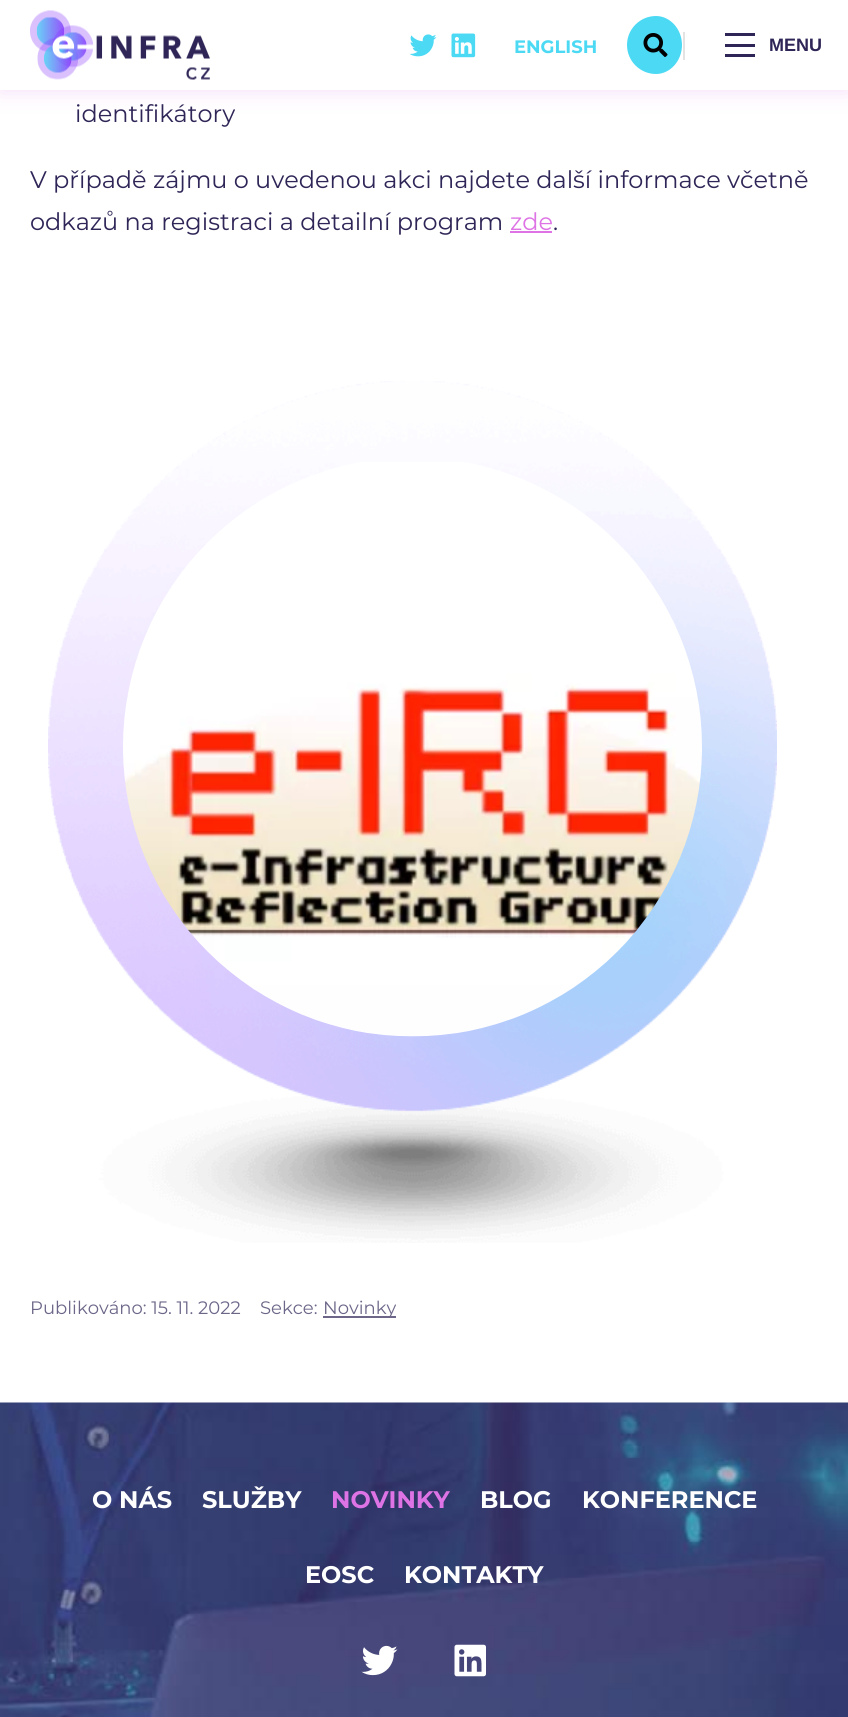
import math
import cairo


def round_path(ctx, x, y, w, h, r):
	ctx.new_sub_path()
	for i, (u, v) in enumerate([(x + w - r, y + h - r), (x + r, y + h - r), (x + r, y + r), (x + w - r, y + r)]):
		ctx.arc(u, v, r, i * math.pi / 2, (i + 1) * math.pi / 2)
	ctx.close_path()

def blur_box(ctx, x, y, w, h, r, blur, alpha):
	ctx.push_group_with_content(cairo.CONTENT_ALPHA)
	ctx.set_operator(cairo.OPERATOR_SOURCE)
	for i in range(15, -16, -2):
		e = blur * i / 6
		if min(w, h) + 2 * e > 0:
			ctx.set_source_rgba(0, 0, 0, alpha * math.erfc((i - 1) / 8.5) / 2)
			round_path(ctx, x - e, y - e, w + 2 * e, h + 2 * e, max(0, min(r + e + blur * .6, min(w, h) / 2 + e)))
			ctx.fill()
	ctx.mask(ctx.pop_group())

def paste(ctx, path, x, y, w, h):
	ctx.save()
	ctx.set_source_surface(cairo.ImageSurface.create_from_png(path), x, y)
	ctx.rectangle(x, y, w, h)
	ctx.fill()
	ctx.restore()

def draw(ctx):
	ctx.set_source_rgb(1, 1, 1)
	ctx.paint()
	ctx.set_source_rgb(0.871, 0.451, 0.898)
	blur_box(ctx, 0, 0, 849, 90, 0, 11, 0.25)
	ctx.set_source_rgb(1, 1, 1)
	ctx.rectangle(0, 0, 848, 90)
	ctx.fill()
	paste(ctx, 'media/1.png', 30, 10, 180, 70)
	paste(ctx, 'media/2.png', 409, 34, 28, 23)
	paste(ctx, 'media/3.png', 451, 33, 25, 25)
	ctx.select_font_face('Montserrat', cairo.FONT_SLANT_NORMAL, cairo.FONT_WEIGHT_BOLD)
	ctx.set_font_size(18)
	ctx.set_source_rgb(0.298, 0.851, 0.957)
	ctx.move_to(514, 53)
	ctx.show_text('ENGLISH')
	ctx.new_path()
	ctx.move_to(656, 16)
	ctx.curve_to(670, 16, 682, 29, 682, 45)
	ctx.curve_to(682, 61, 670, 74, 656, 74)
	ctx.curve_to(640, 74, 627, 61, 627, 45)
	ctx.curve_to(627, 29, 640, 16, 656, 16)
	ctx.close_path()
	ctx.fill()
	ctx.set_source_rgb(0.89, 0.89, 0.89)
	ctx.rectangle(683, 32, 2, 28)
	ctx.fill()
	paste(ctx, 'media/4.png', 643, 33, 25, 24)
	ctx.set_source_rgb(0.184, 0.145, 0.341)
	ctx.rectangle(725, 33, 30, 3)
	ctx.rectangle(725, 44, 30, 3)
	ctx.rectangle(725, 54, 30, 3)
	ctx.fill()
	ctx.select_font_face('Liberation Sans', cairo.FONT_SLANT_NORMAL, cairo.FONT_WEIGHT_BOLD)
	ctx.move_to(769, 51)
	ctx.show_text('MENU')
	ctx.select_font_face('Montserrat')
	ctx.set_font_size(24)
	for x, y, s in [
		(75, 122, 'identifikátory'),
		(30, 188, 'V případě zájmu o uvedenou akci najdete další informace včetně'),
		(30, 230, 'odkazů na registraci a detailní program'),
	]:
		ctx.move_to(x, y)
		ctx.show_text(s)
	ctx.set_source_rgb(0.871, 0.451, 0.898)
	ctx.move_to(510, 230)
	ctx.show_text('zde')
	ctx.rectangle(510, 231, 42, 2)
	ctx.fill()
	ctx.set_source_rgb(0.184, 0.145, 0.341)
	ctx.move_to(553, 230)
	ctx.show_text('.')
	paste(ctx, 'media/5.png', 48, 381, 729, 862)
	paste(ctx, 'media/6.png', 123, 462, 579, 575)
	ctx.set_font_size(18)
	ctx.set_source_rgb(0.427, 0.4, 0.537)
	ctx.move_to(30, 1314)
	ctx.show_text('Publikováno: 15. 11. 2022')
	ctx.move_to(260, 1314)
	ctx.show_text('Sekce:')
	ctx.rectangle(323, 1316, 73, 2)
	ctx.fill()
	ctx.move_to(323, 1314)
	ctx.show_text('Novinky')
	paste(ctx, 'media/7.png', 0, 1402, 848, 315)
	ctx.select_font_face('Montserrat', cairo.FONT_SLANT_NORMAL, cairo.FONT_WEIGHT_BOLD)
	ctx.set_font_size(24)
	ctx.set_source_rgb(1, 1, 1)
	ctx.move_to(92, 1508)
	ctx.show_text('O NÁS')
	ctx.move_to(202, 1508)
	ctx.show_text('SLUŽBY')
	ctx.set_source_rgb(0.871, 0.451, 0.898)
	ctx.move_to(331, 1508)
	ctx.show_text('NOVINKY')
	ctx.set_source_rgb(1, 1, 1)
	for x, y, s in [
		(480, 1508, 'BLOG'),
		(582, 1508, 'KONFERENCE'),
		(305, 1583, 'EOSC'),
		(404, 1583, 'KONTAKTY'),
	]:
		ctx.move_to(x, y)
		ctx.show_text(s)
	paste(ctx, 'media/8.png', 361, 1645, 37, 31)
	paste(ctx, 'media/9.png', 454, 1644, 32, 33)


surface = cairo.ImageSurface(cairo.FORMAT_RGB24, 848, 1717)
ctx = cairo.Context(surface)
options = cairo.FontOptions()
options.set_hint_metrics(cairo.HINT_METRICS_OFF)
options.set_hint_style(cairo.HINT_STYLE_NONE)
ctx.set_font_options(options)
ctx.set_miter_limit(4)
draw(ctx)
surface.write_to_png('image.png')
